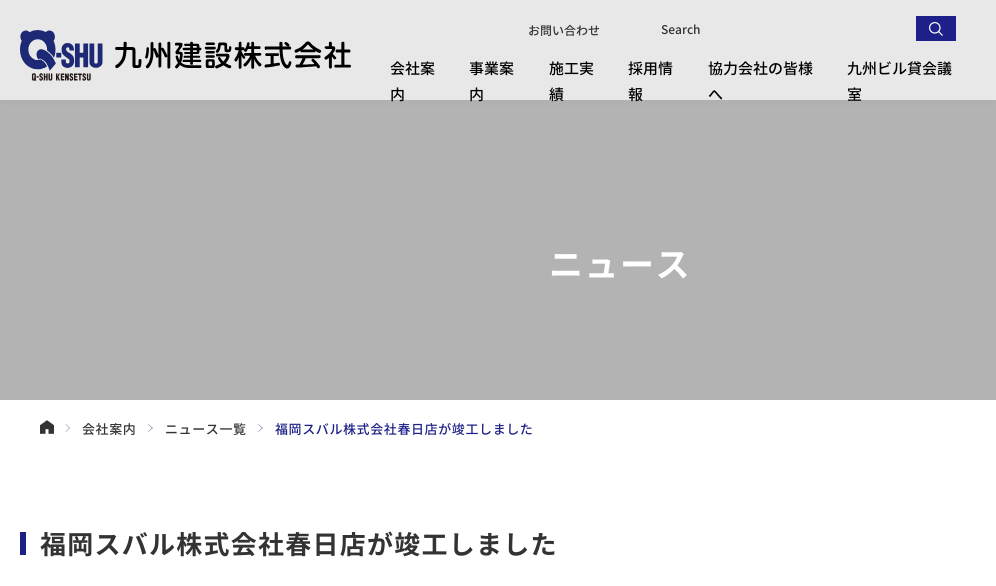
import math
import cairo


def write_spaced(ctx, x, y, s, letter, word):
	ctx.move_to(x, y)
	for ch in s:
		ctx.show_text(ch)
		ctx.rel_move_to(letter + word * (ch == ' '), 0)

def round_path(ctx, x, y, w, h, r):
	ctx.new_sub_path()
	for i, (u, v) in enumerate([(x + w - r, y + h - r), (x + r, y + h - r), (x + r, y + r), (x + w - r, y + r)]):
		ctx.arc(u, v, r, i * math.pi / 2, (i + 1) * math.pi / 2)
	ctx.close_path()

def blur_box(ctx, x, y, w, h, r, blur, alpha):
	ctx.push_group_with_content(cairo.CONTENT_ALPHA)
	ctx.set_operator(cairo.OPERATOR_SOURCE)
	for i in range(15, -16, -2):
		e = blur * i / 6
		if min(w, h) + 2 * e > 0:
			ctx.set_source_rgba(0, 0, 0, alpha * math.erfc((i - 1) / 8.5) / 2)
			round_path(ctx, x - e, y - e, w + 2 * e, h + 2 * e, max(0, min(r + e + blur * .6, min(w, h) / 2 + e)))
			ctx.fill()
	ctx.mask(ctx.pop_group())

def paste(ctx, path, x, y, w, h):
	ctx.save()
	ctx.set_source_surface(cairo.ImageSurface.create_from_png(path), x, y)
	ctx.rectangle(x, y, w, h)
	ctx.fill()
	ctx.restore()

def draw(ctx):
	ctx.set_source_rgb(1, 1, 1)
	ctx.paint()
	ctx.set_source_rgb(0.702, 0.702, 0.702)
	ctx.rectangle(0, 100, 996, 300)
	ctx.fill()
	ctx.set_source_rgb(0.263, 0.427, 0.576)
	blur_box(ctx, 0, 0, 996, 100, 0, 8, 0.1)
	ctx.set_source_rgb(0.91, 0.91, 0.91)
	ctx.rectangle(0, 0, 996, 100)
	ctx.fill()
	paste(ctx, 'media/1.png', 20, 30, 331, 51)
	ctx.select_font_face('Noto Sans JP Medium')
	ctx.set_font_size(12)
	ctx.set_source_rgb(0.2, 0.2, 0.2)
	ctx.move_to(528, 35)
	ctx.show_text('お問い合わせ')
	ctx.move_to(661, 34)
	ctx.show_text('Search')
	ctx.set_source_rgb(0.114, 0.125, 0.533)
	ctx.rectangle(916, 16, 40, 25)
	ctx.fill()
	paste(ctx, 'media/2.png', 929, 22, 14, 14)
	ctx.set_font_size(15)
	ctx.set_source_rgb(0, 0, 0)
	for x, y, s in [
		(390, 74, '会社案'),
		(390, 100, '内'),
		(469, 74, '事業案'),
		(469, 100, '内'),
		(549, 74, '施工実'),
		(549, 100, '績'),
		(628, 74, '採用情'),
		(628, 100, '報'),
		(708, 74, '協力会社の皆様'),
		(708, 100, 'へ'),
		(847, 74, '九州ビル貸会議'),
		(847, 100, '室'),
	]:
		ctx.move_to(x, y)
		ctx.show_text(s)
	ctx.select_font_face('Noto Sans JP', cairo.FONT_SLANT_NORMAL, cairo.FONT_WEIGHT_BOLD)
	ctx.set_font_size(34)
	ctx.set_source_rgb(1, 1, 1)
	write_spaced(ctx, 549, 277, 'ニュース', 1.5, 0)
	paste(ctx, 'media/3.png', 40, 420, 14, 14)
	ctx.set_source_rgb(0.655, 0.659, 0.745)
	ctx.new_path()
	ctx.move_to(65.5, 424.5)
	ctx.line_to(66, 424)
	ctx.line_to(70, 428)
	ctx.line_to(69.5, 428.5)
	ctx.close_path()
	ctx.fill()
	ctx.new_path()
	ctx.move_to(65.5, 431.5)
	ctx.line_to(69.5, 427.5)
	ctx.line_to(70, 428)
	ctx.line_to(66, 432)
	ctx.close_path()
	ctx.fill()
	ctx.select_font_face('Noto Sans JP Medium')
	ctx.set_font_size(13)
	ctx.set_source_rgb(0.2, 0.2, 0.2)
	write_spaced(ctx, 82, 434, '会社案内', 0.6, 0)
	ctx.set_source_rgb(0.655, 0.659, 0.745)
	ctx.new_path()
	ctx.move_to(148, 424.5)
	ctx.line_to(148.5, 424)
	ctx.line_to(153, 428)
	ctx.line_to(152, 428.5)
	ctx.close_path()
	ctx.fill()
	ctx.new_path()
	ctx.move_to(148, 431.5)
	ctx.line_to(152, 427.5)
	ctx.line_to(153, 428)
	ctx.line_to(148.5, 432)
	ctx.close_path()
	ctx.fill()
	ctx.set_source_rgb(0.2, 0.2, 0.2)
	write_spaced(ctx, 165, 434, 'ニュース一覧', 0.6, 0)
	ctx.set_source_rgb(0.655, 0.659, 0.745)
	ctx.new_path()
	ctx.move_to(258, 424.5)
	ctx.line_to(258.5, 424)
	ctx.line_to(263, 428)
	ctx.line_to(262, 428.5)
	ctx.close_path()
	ctx.fill()
	ctx.new_path()
	ctx.move_to(258, 431.5)
	ctx.line_to(262, 427.5)
	ctx.line_to(263, 428)
	ctx.line_to(258.5, 432)
	ctx.close_path()
	ctx.fill()
	ctx.set_source_rgb(0.114, 0.125, 0.533)
	write_spaced(ctx, 275, 434, '福岡スバル株式会社春日店が竣工しました', 0.6, 0)
	ctx.rectangle(20, 532, 6, 23)
	ctx.fill()
	ctx.select_font_face('Noto Sans JP', cairo.FONT_SLANT_NORMAL, cairo.FONT_WEIGHT_BOLD)
	ctx.set_font_size(26)
	ctx.set_source_rgb(0.2, 0.2, 0.2)
	write_spaced(ctx, 40, 554, '福岡スバル株式会社春日店が竣工しました', 1.25, 0)


surface = cairo.ImageSurface(cairo.FORMAT_RGB24, 996, 586)
ctx = cairo.Context(surface)
options = cairo.FontOptions()
options.set_hint_metrics(cairo.HINT_METRICS_OFF)
options.set_hint_style(cairo.HINT_STYLE_NONE)
ctx.set_font_options(options)
ctx.set_miter_limit(4)
draw(ctx)
surface.write_to_png('image.png')
